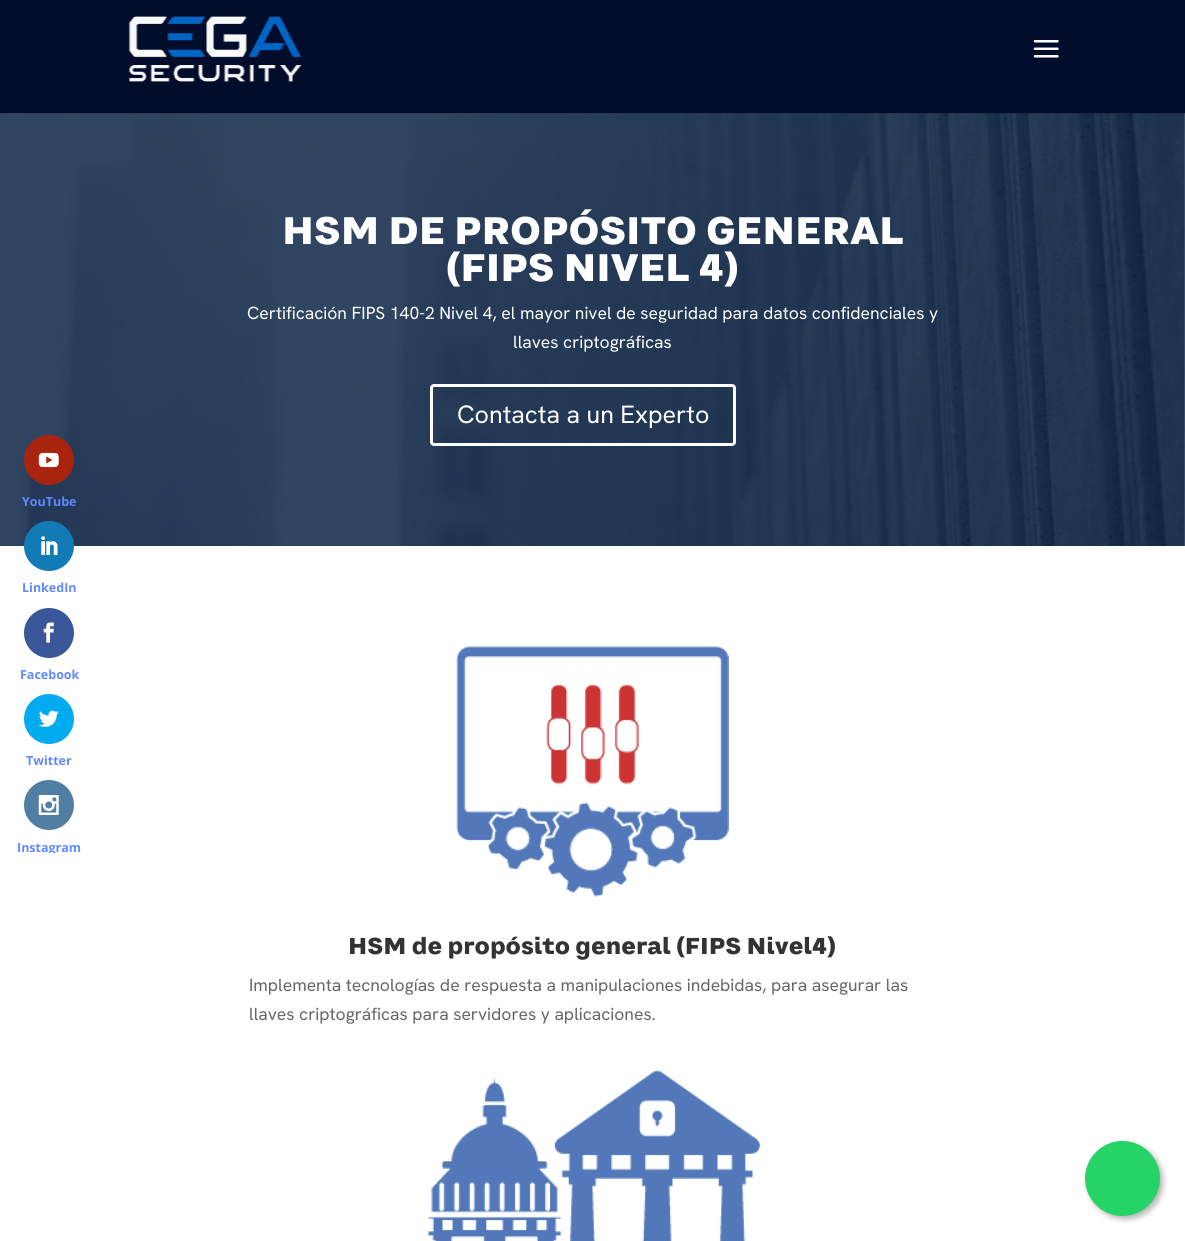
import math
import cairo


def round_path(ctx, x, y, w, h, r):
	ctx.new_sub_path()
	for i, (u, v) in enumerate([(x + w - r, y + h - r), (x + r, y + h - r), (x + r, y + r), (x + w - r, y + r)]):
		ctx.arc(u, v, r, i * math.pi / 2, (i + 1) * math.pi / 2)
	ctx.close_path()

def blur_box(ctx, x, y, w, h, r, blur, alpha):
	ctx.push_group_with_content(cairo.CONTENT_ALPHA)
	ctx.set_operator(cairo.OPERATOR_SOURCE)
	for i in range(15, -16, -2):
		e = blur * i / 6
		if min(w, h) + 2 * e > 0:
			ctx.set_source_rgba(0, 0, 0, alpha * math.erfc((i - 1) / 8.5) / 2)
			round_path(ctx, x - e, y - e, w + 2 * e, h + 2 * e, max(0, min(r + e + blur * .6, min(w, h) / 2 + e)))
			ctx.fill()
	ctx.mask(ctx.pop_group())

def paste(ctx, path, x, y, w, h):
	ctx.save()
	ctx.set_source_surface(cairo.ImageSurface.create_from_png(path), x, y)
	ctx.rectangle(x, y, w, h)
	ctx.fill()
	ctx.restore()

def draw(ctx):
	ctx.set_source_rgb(1, 1, 1)
	ctx.paint()
	paste(ctx, 'media/3.png', 0, 113, 1185, 433)
	ctx.set_source_rgba(0, 0, 0, 0.1)
	ctx.rectangle(0, 113, 1185, 1)
	ctx.fill()
	ctx.set_source_rgb(0.008, 0.051, 0.169)
	ctx.rectangle(0, 0, 1185, 113)
	ctx.fill()
	paste(ctx, 'media/1.png', 128, 16, 174, 66)
	paste(ctx, 'media/2.png', 1033, 40, 26, 18)
	ctx.select_font_face('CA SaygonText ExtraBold')
	ctx.set_font_size(37.5)
	ctx.set_source_rgb(1, 1, 1)
	ctx.move_to(282, 244)
	ctx.show_text('HSM DE PROPÓSITO GENERAL')
	ctx.move_to(446, 281)
	ctx.show_text('(FIPS NIVEL 4)')
	ctx.select_font_face('Hanken Grotesk')
	ctx.set_font_size(17.5)
	ctx.move_to(247, 319)
	ctx.show_text('Certificación FIPS 140-2 Nivel 4, el mayor nivel de seguridad para datos confidenciales y')
	ctx.move_to(513, 348)
	ctx.show_text('llaves criptográficas')
	round_path(ctx, 431.5, 385.5, 303, 59, 2.5)
	ctx.set_line_width(3)
	ctx.stroke()
	ctx.set_font_size(25)
	ctx.move_to(457, 423)
	ctx.show_text('Contacta a un Experto')
	ctx.set_source_rgb(0.659, 0.141, 0.059)
	ctx.new_path()
	ctx.arc(49, 460, 25, 0, 2 * math.pi)
	ctx.fill()
	paste(ctx, 'media/4.png', 38, 452, 21, 16)
	ctx.select_font_face('Open Sans', cairo.FONT_SLANT_NORMAL, cairo.FONT_WEIGHT_BOLD)
	ctx.set_font_size(12.5)
	ctx.set_source_rgb(0.376, 0.533, 1)
	ctx.move_to(22, 506)
	ctx.show_text('YouTube')
	ctx.set_source_rgb(0.071, 0.482, 0.714)
	ctx.new_path()
	ctx.arc(49, 546, 25, 0, 2 * math.pi)
	ctx.fill()
	paste(ctx, 'media/5.png', 41, 536, 17, 19)
	ctx.set_source_rgb(0.376, 0.533, 1)
	ctx.move_to(22, 592)
	ctx.show_text('LinkedIn')
	ctx.set_source_rgb(0.227, 0.341, 0.604)
	ctx.new_path()
	ctx.arc(49, 633, 25, 0, 2 * math.pi)
	ctx.fill()
	paste(ctx, 'media/6.png', 43, 622, 11, 21)
	ctx.set_source_rgb(0.376, 0.533, 1)
	ctx.move_to(20, 679)
	ctx.show_text('Facebook')
	ctx.set_source_rgb(0, 0.671, 0.941)
	ctx.new_path()
	ctx.arc(49, 719, 25, 0, 2 * math.pi)
	ctx.fill()
	paste(ctx, 'media/7.png', 39, 710, 20, 17)
	ctx.set_source_rgb(0.376, 0.533, 1)
	ctx.move_to(26, 765)
	ctx.show_text('Twitter')
	ctx.set_source_rgb(0.318, 0.498, 0.643)
	ctx.new_path()
	ctx.arc(49, 805, 25, 0, 2 * math.pi)
	ctx.fill()
	paste(ctx, 'media/8.png', 38, 795, 21, 20)
	ctx.save()
	ctx.rectangle(11, 780, 75, 73)
	ctx.clip()
	ctx.set_source_rgb(0.376, 0.533, 1)
	ctx.move_to(17, 852)
	ctx.show_text('Instagram')
	ctx.restore()
	paste(ctx, 'media/9.png', 456, 646, 273, 251)
	ctx.select_font_face('CA SaygonText ExtraBold')
	ctx.set_font_size(22.5)
	ctx.set_source_rgb(0.2, 0.2, 0.2)
	ctx.move_to(348, 954)
	ctx.show_text('HSM de propósito general (FIPS Nivel4)')
	ctx.select_font_face('Hanken Grotesk')
	ctx.set_font_size(17.5)
	ctx.set_source_rgb(0.4, 0.4, 0.4)
	ctx.move_to(249, 991)
	ctx.show_text('Implementa tecnologías de respuesta a manipulaciones indebidas, para asegurar las')
	ctx.move_to(249, 1020)
	ctx.show_text('llaves criptográficas para servidores y aplicaciones.')
	paste(ctx, 'media/10.png', 427, 1070, 334, 171)
	ctx.set_source_rgb(0, 0, 0)
	blur_box(ctx, 1088, 1144, 75, 75, 37.5, 3, 0.3)
	ctx.set_source_rgb(0.145, 0.827, 0.4)
	ctx.arc(1122.5, 1178.5, 37.5, 0, 2 * math.pi)
	ctx.fill()


surface = cairo.ImageSurface(cairo.FORMAT_RGB24, 1185, 1241)
ctx = cairo.Context(surface)
options = cairo.FontOptions()
options.set_hint_metrics(cairo.HINT_METRICS_OFF)
options.set_hint_style(cairo.HINT_STYLE_NONE)
ctx.set_font_options(options)
ctx.set_miter_limit(4)
draw(ctx)
surface.write_to_png('image.png')
